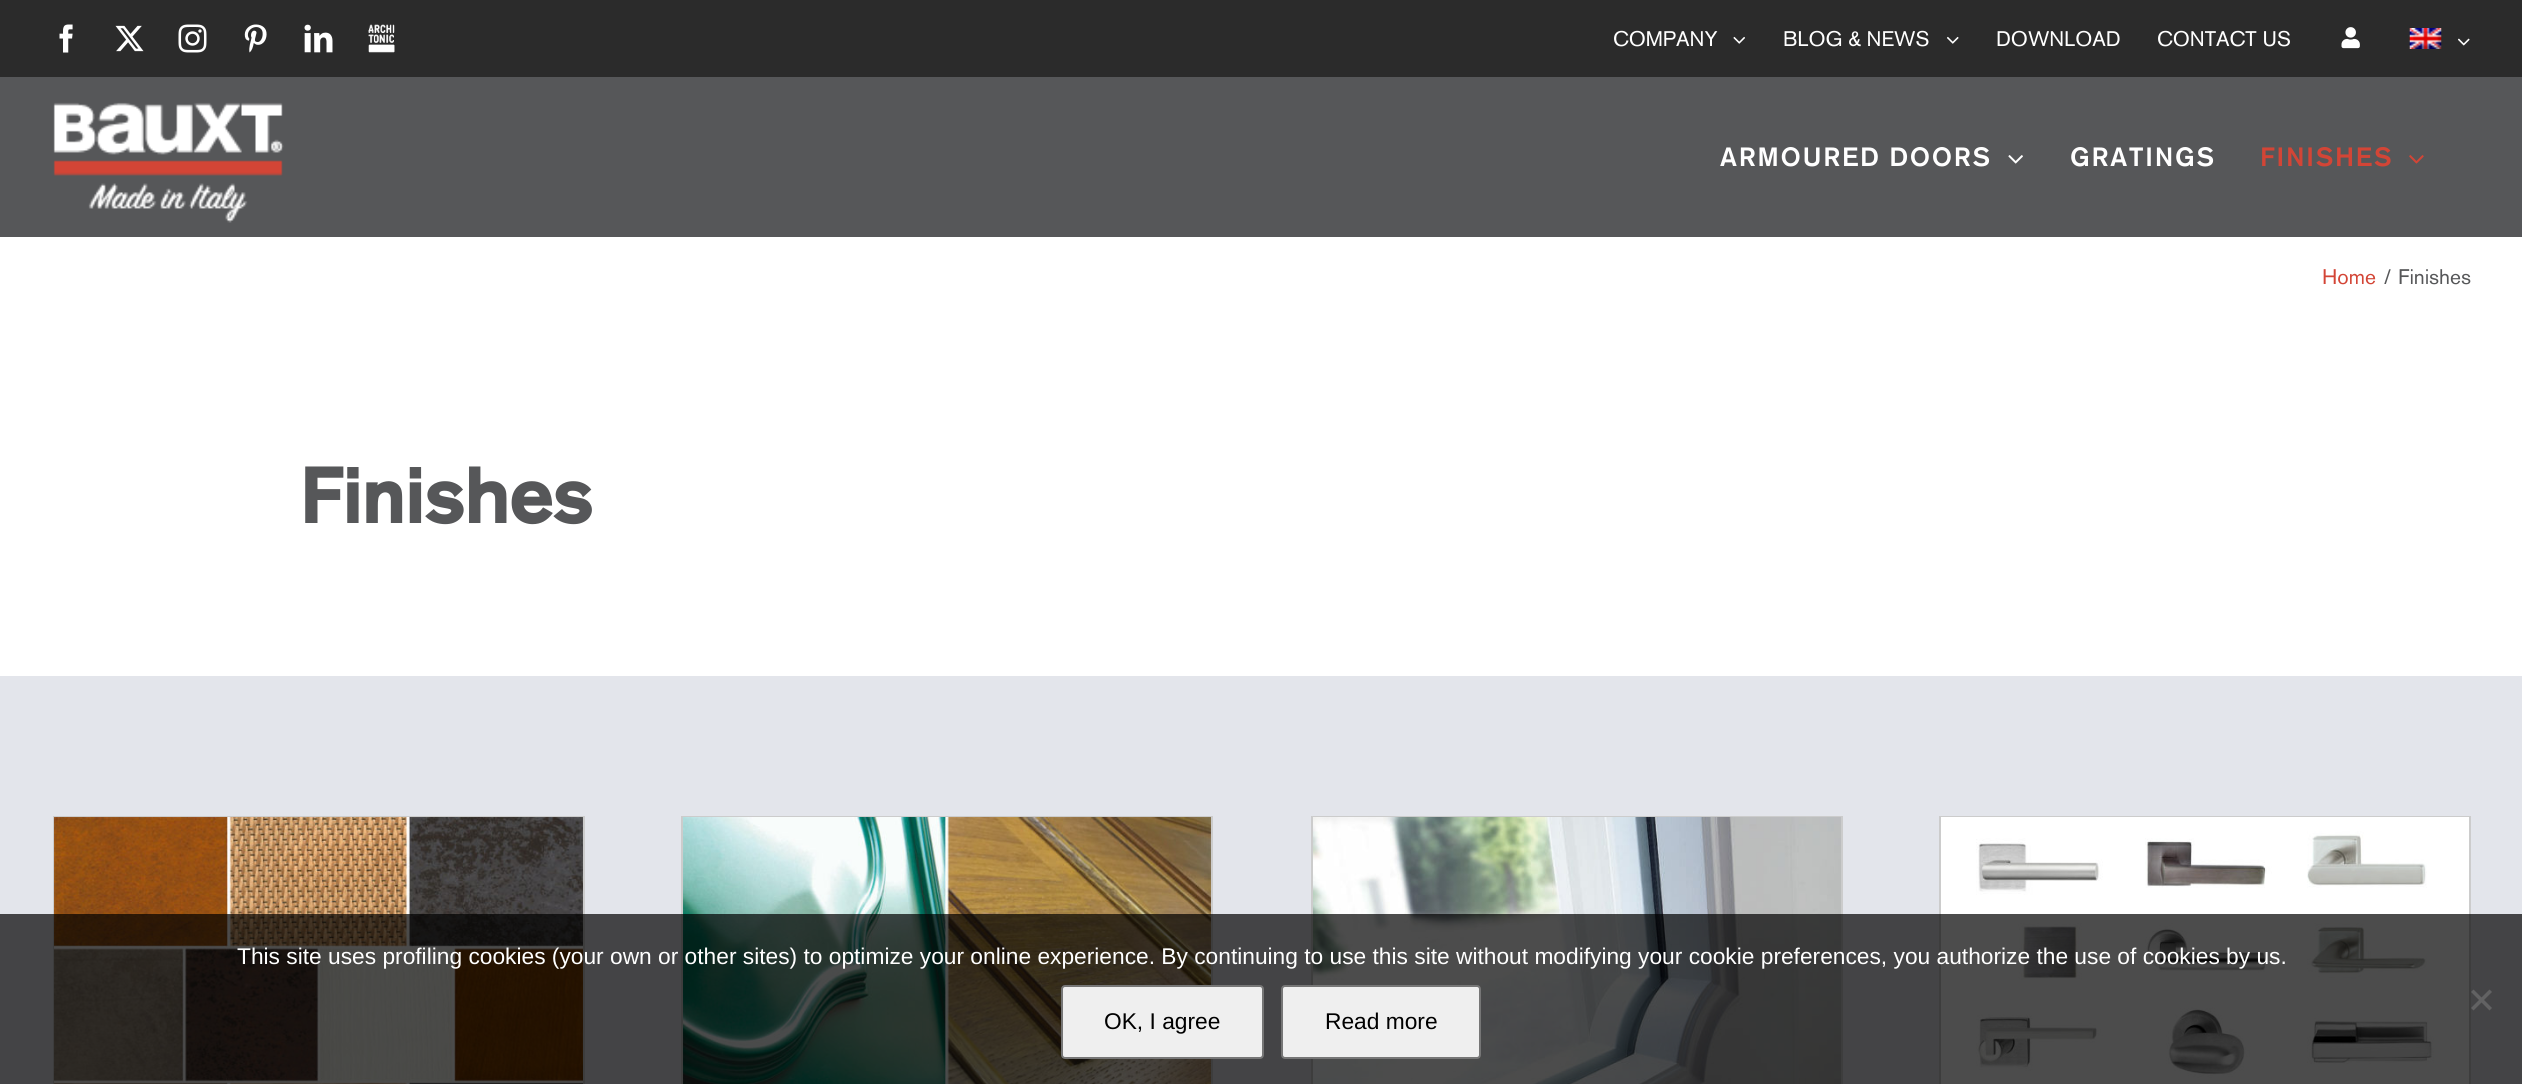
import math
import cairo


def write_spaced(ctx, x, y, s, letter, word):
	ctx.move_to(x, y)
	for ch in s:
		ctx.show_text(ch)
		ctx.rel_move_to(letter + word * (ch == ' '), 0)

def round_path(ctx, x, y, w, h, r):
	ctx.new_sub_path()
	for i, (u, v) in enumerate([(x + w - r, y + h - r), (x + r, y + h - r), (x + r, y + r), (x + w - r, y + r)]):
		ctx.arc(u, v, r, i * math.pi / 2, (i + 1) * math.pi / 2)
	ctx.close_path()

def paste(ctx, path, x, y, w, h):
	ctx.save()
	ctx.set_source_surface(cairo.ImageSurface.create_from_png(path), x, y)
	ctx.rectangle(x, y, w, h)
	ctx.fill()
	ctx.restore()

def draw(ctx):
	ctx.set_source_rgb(1, 1, 1)
	ctx.paint()
	ctx.set_source_rgb(0.169, 0.169, 0.169)
	ctx.rectangle(0, 0, 2522, 77)
	ctx.fill()
	ctx.set_source_rgb(0.337, 0.341, 0.349)
	ctx.rectangle(0, 77, 2522, 160)
	ctx.fill()
	paste(ctx, 'media/1.png', 59, 24, 14, 29)
	paste(ctx, 'media/2.png', 115, 25, 29, 27)
	paste(ctx, 'media/3.png', 178, 24, 29, 29)
	paste(ctx, 'media/4.png', 244, 24, 23, 29)
	paste(ctx, 'media/5.png', 304, 24, 29, 29)
	paste(ctx, 'media/6.png', 368, 24, 27, 29)
	ctx.select_font_face('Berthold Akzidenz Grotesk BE')
	ctx.set_font_size(21)
	ctx.set_source_rgb(1, 1, 1)
	ctx.move_to(1613, 46)
	ctx.show_text('COMPANY')
	paste(ctx, 'media/7.png', 1733, 36, 12, 8)
	ctx.move_to(1783, 46)
	ctx.show_text('BLOG & NEWS')
	paste(ctx, 'media/8.png', 1947, 36, 12, 8)
	ctx.move_to(1996, 46)
	ctx.show_text('DOWNLOAD')
	ctx.move_to(2157, 46)
	ctx.show_text('CONTACT US')
	paste(ctx, 'media/9.png', 2341, 27, 19, 22)
	paste(ctx, 'media/10.png', 2409, 28, 33, 21)
	paste(ctx, 'media/11.png', 2458, 38, 12, 8)
	paste(ctx, 'media/12.png', 53, 102, 231, 121)
	ctx.select_font_face('Berthold Akzidenz Grotesk BE Medium')
	ctx.set_font_size(26.25)
	write_spaced(ctx, 1720, 166, 'ARMOURED DOORS', 1.75, 0)
	paste(ctx, 'media/13.png', 2008, 155, 15, 9)
	write_spaced(ctx, 2070, 166, 'GRATINGS', 1.75, 0)
	ctx.set_source_rgb(0.827, 0.271, 0.212)
	write_spaced(ctx, 2260, 166, 'FINISHES', 1.75, 0)
	paste(ctx, 'media/14.png', 2409, 155, 15, 9)
	ctx.select_font_face('Berthold Akzidenz Grotesk BE')
	ctx.set_font_size(21)
	ctx.move_to(2322, 284)
	ctx.show_text('Home')
	ctx.set_source_rgb(0.337, 0.341, 0.349)
	ctx.move_to(2384, 284)
	ctx.show_text('/')
	ctx.move_to(2398, 284)
	ctx.show_text('Finishes')
	ctx.select_font_face('Berthold Akzidenz Grotesk BE', cairo.FONT_SLANT_NORMAL, cairo.FONT_WEIGHT_BOLD)
	ctx.set_font_size(77)
	ctx.move_to(299, 523)
	ctx.show_text('Finishes')
	ctx.set_source_rgb(0.89, 0.898, 0.918)
	ctx.rectangle(0, 676, 2522, 408)
	ctx.fill()
	ctx.rectangle(54, 817, 530, 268)
	ctx.set_source_rgb(0.8, 0.8, 0.8)
	ctx.stroke()
	paste(ctx, 'media/15.png', 54, 817, 529, 267)
	ctx.rectangle(682, 817, 530, 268)
	ctx.stroke()
	paste(ctx, 'media/16.png', 683, 817, 528, 267)
	ctx.rectangle(1312, 817, 530, 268)
	ctx.stroke()
	paste(ctx, 'media/17.png', 1313, 817, 528, 267)
	ctx.rectangle(1940, 817, 530, 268)
	ctx.stroke()
	paste(ctx, 'media/18.png', 1941, 817, 528, 267)
	ctx.set_source_rgba(0, 0, 0, 0.7)
	ctx.rectangle(0, 914, 2522, 170)
	ctx.fill()
	ctx.select_font_face('Liberation Sans')
	ctx.set_font_size(22.75)
	ctx.set_source_rgb(1, 1, 1)
	ctx.move_to(237, 964)
	ctx.show_text('This site uses profiling cookies (your own or other sites) to optimize your online experience. By continuing to use this site without modifying your cookie preferences, you authorize the use of cookies by us.')
	ctx.set_source_rgb(0.384, 0.384, 0.388)
	ctx.new_path()
	ctx.move_to(2489.5, 989.5)
	ctx.line_to(2492, 992)
	ctx.line_to(2473.5, 1010.5)
	ctx.line_to(2471, 1008)
	ctx.close_path()
	ctx.fill()
	ctx.new_path()
	ctx.move_to(2471, 992)
	ctx.line_to(2473.5, 989.5)
	ctx.line_to(2492, 1008)
	ctx.line_to(2489.5, 1010.5)
	ctx.close_path()
	ctx.fill()
	ctx.set_source_rgb(0.937, 0.937, 0.937)
	round_path(ctx, 1062, 986, 201, 72, 3)
	ctx.fill_preserve()
	ctx.set_source_rgb(0.463, 0.463, 0.463)
	ctx.stroke()
	ctx.set_source_rgb(0, 0, 0)
	ctx.move_to(1104, 1029)
	ctx.show_text('OK, I agree')
	ctx.set_source_rgb(0.937, 0.937, 0.937)
	round_path(ctx, 1282, 986, 198, 72, 3)
	ctx.fill_preserve()
	ctx.set_source_rgb(0.463, 0.463, 0.463)
	ctx.stroke()
	ctx.set_source_rgb(0, 0, 0)
	ctx.move_to(1325, 1029)
	ctx.show_text('Read more')


surface = cairo.ImageSurface(cairo.FORMAT_RGB24, 2522, 1084)
ctx = cairo.Context(surface)
options = cairo.FontOptions()
options.set_hint_metrics(cairo.HINT_METRICS_OFF)
options.set_hint_style(cairo.HINT_STYLE_NONE)
ctx.set_font_options(options)
ctx.set_miter_limit(4)
draw(ctx)
surface.write_to_png('image.png')
